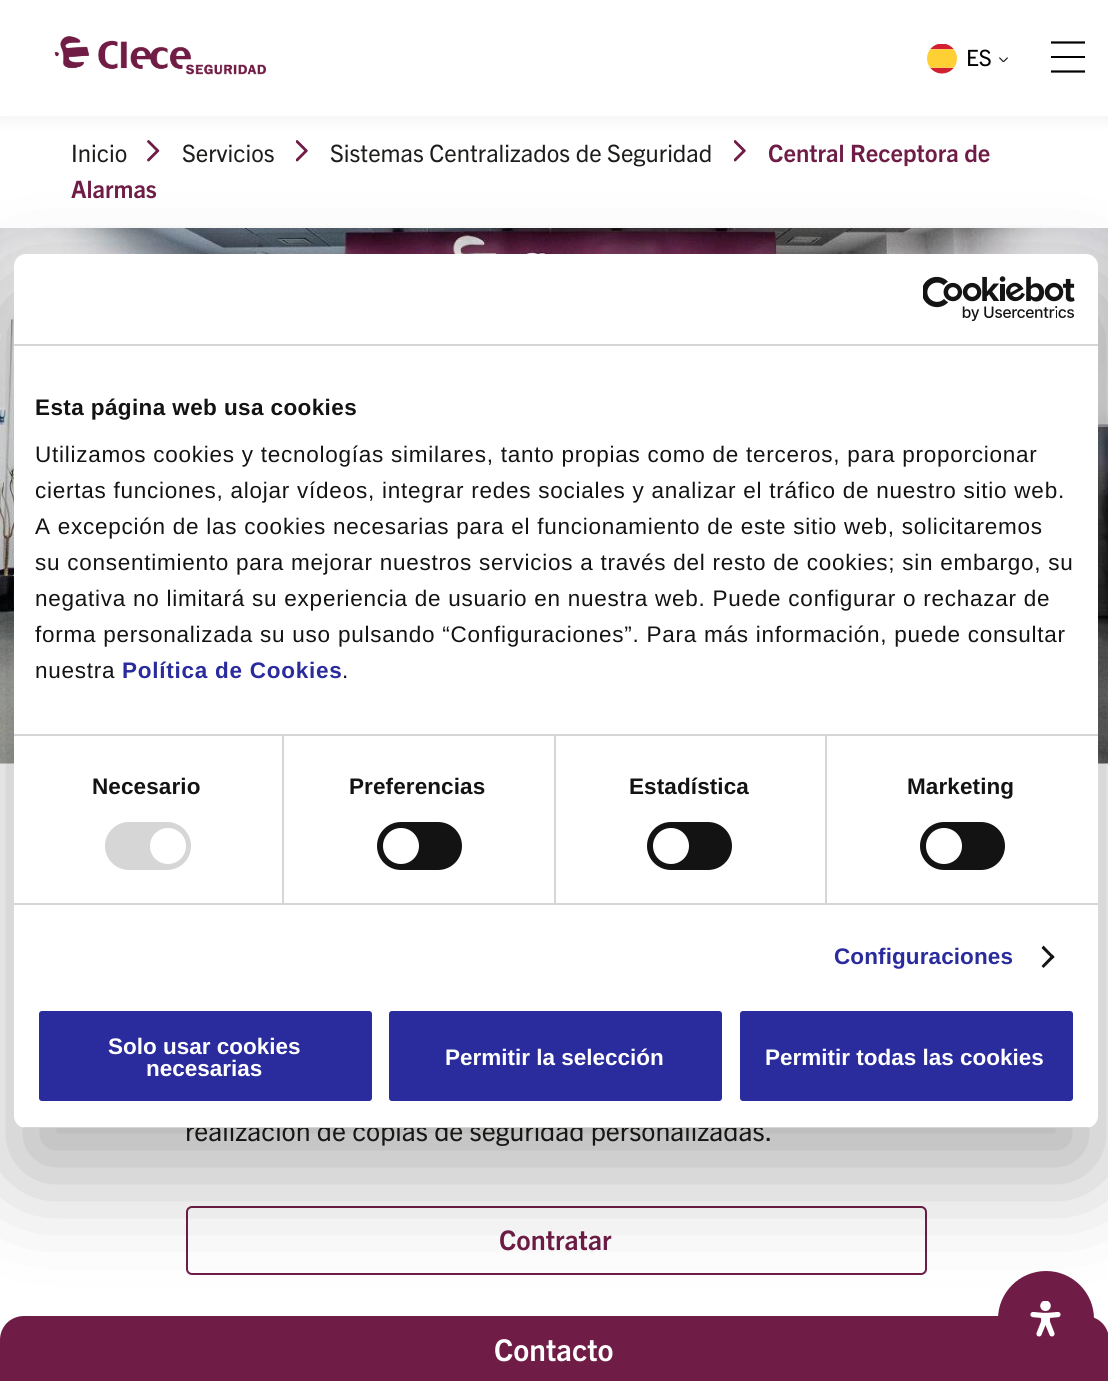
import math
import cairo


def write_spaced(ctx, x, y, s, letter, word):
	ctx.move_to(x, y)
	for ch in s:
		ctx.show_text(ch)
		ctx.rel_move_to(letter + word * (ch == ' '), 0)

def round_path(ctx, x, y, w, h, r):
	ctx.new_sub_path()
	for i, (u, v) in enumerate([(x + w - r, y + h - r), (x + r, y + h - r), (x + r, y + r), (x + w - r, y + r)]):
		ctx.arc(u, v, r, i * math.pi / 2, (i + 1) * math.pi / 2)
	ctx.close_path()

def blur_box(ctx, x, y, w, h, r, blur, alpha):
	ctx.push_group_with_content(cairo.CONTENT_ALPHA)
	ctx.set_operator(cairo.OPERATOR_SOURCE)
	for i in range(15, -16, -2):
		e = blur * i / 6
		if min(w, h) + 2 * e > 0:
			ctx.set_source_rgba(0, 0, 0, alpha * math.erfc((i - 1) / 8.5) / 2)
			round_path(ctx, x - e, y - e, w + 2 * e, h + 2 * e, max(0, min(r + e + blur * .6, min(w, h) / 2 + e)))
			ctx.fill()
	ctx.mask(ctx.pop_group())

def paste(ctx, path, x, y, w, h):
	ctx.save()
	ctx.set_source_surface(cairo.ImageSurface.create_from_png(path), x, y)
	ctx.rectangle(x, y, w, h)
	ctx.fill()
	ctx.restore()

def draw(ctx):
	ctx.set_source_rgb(1, 1, 1)
	ctx.paint()
	paste(ctx, 'media/4.png', 147, 140, 13, 22)
	paste(ctx, 'media/5.png', 296, 140, 12, 22)
	paste(ctx, 'media/5.png', 734, 140, 12, 22)
	ctx.set_source_rgb(0, 0, 0)
	blur_box(ctx, 0, 5, 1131, 115, 0, 7.5, 0.05)
	ctx.set_source_rgb(1, 1, 1)
	ctx.rectangle(0, 0, 1108, 116)
	ctx.fill()
	paste(ctx, 'media/1.png', 54, 36, 212, 39)
	paste(ctx, 'media/2.png', 927, 44, 30, 30)
	ctx.select_font_face('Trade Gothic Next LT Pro')
	ctx.set_font_size(22.5)
	ctx.set_source_rgb(0, 0, 0)
	ctx.move_to(966, 66)
	ctx.show_text('ES')
	paste(ctx, 'media/3.png', 999, 57, 9, 5)
	ctx.new_path()
	ctx.move_to(1051, 42.5)
	ctx.line_to(1085, 42.5)
	ctx.set_line_width(2.2)
	ctx.stroke()
	ctx.rectangle(1051, 56, 34, 2)
	ctx.fill()
	ctx.new_path()
	ctx.move_to(1051, 71.5)
	ctx.line_to(1085, 71.5)
	ctx.stroke()
	ctx.set_font_size(24)
	ctx.set_source_rgb(0.114, 0.114, 0.106)
	for x, y, s in [
		(71, 162, 'Inicio'),
		(182, 162, 'Servicios'),
		(330, 162, 'Sistemas Centralizados de Seguridad'),
	]:
		ctx.move_to(x, y)
		ctx.show_text(s)
	ctx.select_font_face('Trade Gothic Next LT Pro', cairo.FONT_SLANT_NORMAL, cairo.FONT_WEIGHT_BOLD)
	ctx.set_source_rgb(0.435, 0.114, 0.275)
	ctx.move_to(768, 162)
	ctx.show_text('Central Receptora de')
	ctx.move_to(71, 198)
	ctx.show_text('Alarmas')
	paste(ctx, 'media/6.png', 0, 228, 1108, 536)
	ctx.select_font_face('Trade Gothic Next LT Pro')
	ctx.set_font_size(27)
	ctx.set_source_rgb(0.114, 0.114, 0.106)
	ctx.move_to(185, 1141)
	ctx.show_text('realización de copias de seguridad personalizadas.')
	round_path(ctx, 187, 1207, 739, 67, 5)
	ctx.set_source_rgb(0.435, 0.114, 0.275)
	ctx.set_line_width(2)
	ctx.stroke()
	ctx.select_font_face('Trade Gothic Next LT Pro', cairo.FONT_SLANT_NORMAL, cairo.FONT_WEIGHT_BOLD)
	ctx.move_to(499, 1250)
	ctx.show_text('Contratar')
	ctx.new_path()
	ctx.move_to(24, 1316)
	ctx.line_to(1085, 1316)
	ctx.curve_to(1098.5, 1316, 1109, 1326.5, 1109, 1340)
	ctx.line_to(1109, 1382)
	ctx.line_to(0, 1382)
	ctx.line_to(0, 1340)
	ctx.curve_to(0, 1326.5, 10.5, 1316, 24, 1316)
	ctx.close_path()
	ctx.fill()
	ctx.set_font_size(30)
	ctx.set_source_rgb(1, 1, 1)
	ctx.move_to(494, 1361)
	ctx.show_text('Contacto')
	ctx.set_source_rgb(0.435, 0.114, 0.275)
	ctx.new_path()
	ctx.arc(1046, 1319, 48, 0, 2 * math.pi)
	ctx.fill()
	paste(ctx, 'media/8.png', 1030, 1301, 31, 36)
	ctx.set_source_rgb(0, 0, 0)
	blur_box(ctx, 14, 302, 1084, 874, 12, 51, 0.3)
	ctx.set_source_rgb(1, 1, 1)
	round_path(ctx, 14, 254, 1084, 874, 12)
	ctx.fill()
	ctx.set_source_rgb(0.839, 0.839, 0.839)
	ctx.rectangle(14, 344, 1084, 2)
	ctx.fill()
	paste(ctx, 'media/7.png', 923, 276, 152, 45)
	ctx.rectangle(282, 735, 2, 168)
	ctx.rectangle(554, 735, 2, 168)
	ctx.rectangle(825, 735, 2, 168)
	ctx.rectangle(14, 734, 1084, 2)
	ctx.fill()
	ctx.select_font_face('Liberation Sans', cairo.FONT_SLANT_NORMAL, cairo.FONT_WEIGHT_BOLD)
	ctx.set_font_size(22.5)
	ctx.set_source_rgb(0.078, 0.078, 0.078)
	write_spaced(ctx, 35, 415, 'Esta página web usa cookies', 0.4, 0)
	ctx.select_font_face('Liberation Sans')
	for x, y, s in [
		(35, 462, 'Utilizamos cookies y tecnologías similares, tanto propias como de terceros, para proporcionar'),
		(35, 498, 'ciertas funciones, alojar vídeos, integrar redes sociales y analizar el tráfico de nuestro sitio web.'),
		(35, 534, 'A excepción de las cookies necesarias para el funcionamiento de este sitio web, solicitaremos'),
		(35, 570, 'su consentimiento para mejorar nuestros servicios a través del resto de cookies; sin embargo, su'),
		(35, 606, 'negativa no limitará su experiencia de usuario en nuestra web. Puede configurar o rechazar de'),
		(35, 642, 'forma personalizada su uso pulsando “Configuraciones”. Para más información, puede consultar'),
		(35, 678, 'nuestra'),
	]:
		write_spaced(ctx, x, y, s, 0.75, 0)
	ctx.select_font_face('Liberation Sans', cairo.FONT_SLANT_NORMAL, cairo.FONT_WEIGHT_BOLD)
	ctx.set_source_rgb(0.165, 0.169, 0.616)
	write_spaced(ctx, 122, 678, 'Política de Cookies', 0.75, 0)
	ctx.select_font_face('Liberation Sans')
	ctx.set_source_rgb(0.078, 0.078, 0.078)
	write_spaced(ctx, 342, 678, '.', 0.75, 0)
	ctx.set_source_rgb(0.839, 0.839, 0.839)
	ctx.rectangle(14, 903, 1084, 2)
	ctx.fill()
	ctx.select_font_face('Liberation Sans', cairo.FONT_SLANT_NORMAL, cairo.FONT_WEIGHT_BOLD)
	ctx.set_source_rgb(0.078, 0.078, 0.078)
	write_spaced(ctx, 92, 794, 'Necesario', 0.1, 0)
	ctx.set_source_rgb(0.839, 0.839, 0.839)
	round_path(ctx, 105, 822, 86, 48, 24)
	ctx.fill()
	ctx.set_source_rgb(1, 1, 1)
	ctx.arc(168, 846, 18, 0, 2 * math.pi)
	ctx.fill()
	ctx.set_source_rgb(0.078, 0.078, 0.078)
	write_spaced(ctx, 349, 794, 'Preferencias', 0.1, 0)
	round_path(ctx, 377, 822, 85, 48, 24)
	ctx.fill()
	ctx.set_source_rgb(1, 1, 1)
	ctx.arc(401, 846, 18, 0, 2 * math.pi)
	ctx.fill()
	ctx.set_source_rgb(0.078, 0.078, 0.078)
	write_spaced(ctx, 629, 794, 'Estadística', 0.1, 0)
	round_path(ctx, 647, 822, 85, 48, 24)
	ctx.fill()
	ctx.set_source_rgb(1, 1, 1)
	ctx.arc(671, 846, 18, 0, 2 * math.pi)
	ctx.fill()
	ctx.set_source_rgb(0.078, 0.078, 0.078)
	write_spaced(ctx, 907, 794, 'Marketing', 0.1, 0)
	round_path(ctx, 920, 822, 85, 48, 24)
	ctx.fill()
	ctx.set_source_rgb(1, 1, 1)
	ctx.arc(944, 846, 18, 0, 2 * math.pi)
	ctx.fill()
	ctx.set_source_rgb(0.165, 0.169, 0.616)
	write_spaced(ctx, 834, 964, 'Configuraciones', 0.1, 0)
	ctx.set_source_rgb(0.078, 0.078, 0.078)
	ctx.new_path()
	ctx.move_to(1043.5, 945.5)
	ctx.line_to(1054.5, 957)
	ctx.line_to(1052.5, 959)
	ctx.line_to(1041.5, 948)
	ctx.close_path()
	ctx.fill()
	ctx.new_path()
	ctx.move_to(1052.5, 954.5)
	ctx.line_to(1054.5, 957)
	ctx.line_to(1043.5, 968)
	ctx.line_to(1041.5, 966)
	ctx.close_path()
	ctx.fill()
	ctx.save()
	round_path(ctx, 14, 254, 1084, 874, 12)
	ctx.clip()
	ctx.set_source_rgb(0.839, 0.839, 0.839)
	ctx.rectangle(14, 1127, 1084, 1)
	ctx.fill()
	ctx.restore()
	ctx.set_source_rgb(0.165, 0.169, 0.616)
	round_path(ctx, 37.5, 1009.5, 336, 93, 4.5)
	ctx.fill_preserve()
	ctx.set_source_rgb(1, 1, 1)
	ctx.set_line_width(3)
	ctx.stroke()
	ctx.move_to(108, 1054)
	ctx.show_text('Solo usar cookies')
	ctx.move_to(146, 1076)
	ctx.show_text('necesarias')
	ctx.set_source_rgb(0.165, 0.169, 0.616)
	round_path(ctx, 387.5, 1009.5, 336, 93, 4.5)
	ctx.fill_preserve()
	ctx.set_source_rgb(1, 1, 1)
	ctx.stroke()
	ctx.move_to(445, 1065)
	ctx.show_text('Permitir la selección')
	ctx.set_source_rgb(0.165, 0.169, 0.616)
	round_path(ctx, 738.5, 1009.5, 336, 93, 4.5)
	ctx.fill_preserve()
	ctx.set_source_rgb(1, 1, 1)
	ctx.stroke()
	ctx.move_to(765, 1065)
	ctx.show_text('Permitir todas las cookies')


surface = cairo.ImageSurface(cairo.FORMAT_RGB24, 1108, 1381)
ctx = cairo.Context(surface)
options = cairo.FontOptions()
options.set_hint_metrics(cairo.HINT_METRICS_OFF)
options.set_hint_style(cairo.HINT_STYLE_NONE)
ctx.set_font_options(options)
ctx.set_miter_limit(4)
draw(ctx)
surface.write_to_png('image.png')
